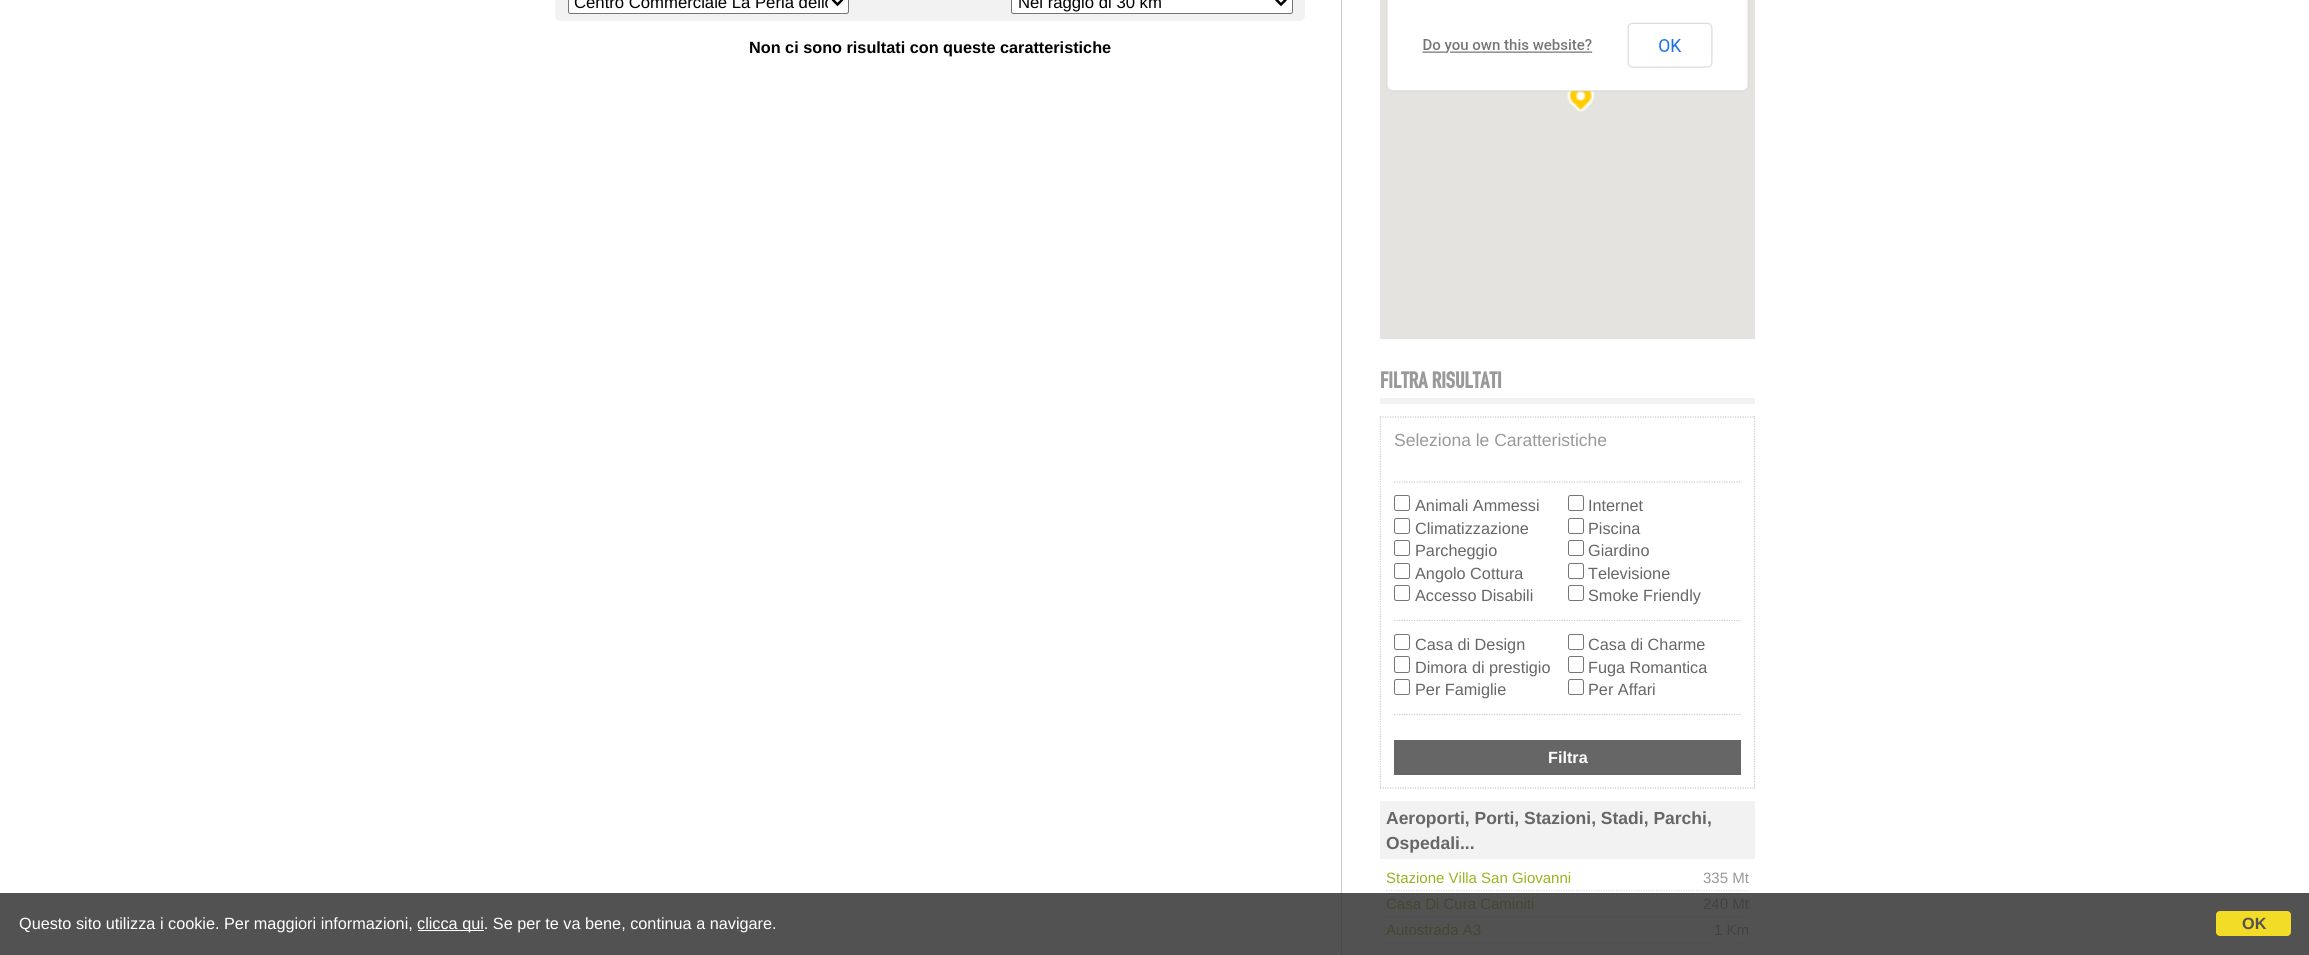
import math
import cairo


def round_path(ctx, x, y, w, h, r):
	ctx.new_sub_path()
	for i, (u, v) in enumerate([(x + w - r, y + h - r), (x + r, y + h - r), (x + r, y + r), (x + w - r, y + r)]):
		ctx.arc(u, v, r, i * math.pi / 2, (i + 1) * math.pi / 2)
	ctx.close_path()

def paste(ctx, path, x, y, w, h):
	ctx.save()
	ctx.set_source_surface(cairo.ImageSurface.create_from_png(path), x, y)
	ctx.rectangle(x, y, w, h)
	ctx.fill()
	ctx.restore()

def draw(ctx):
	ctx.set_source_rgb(1, 1, 1)
	ctx.paint()
	ctx.set_source_rgb(0.322, 0.322, 0.322)
	ctx.rectangle(0, 893, 2309, 62)
	ctx.fill()
	ctx.set_source_rgb(0.949, 0.949, 0.949)
	round_path(ctx, 555, -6, 750, 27, 6)
	ctx.fill()
	ctx.set_source_rgb(1, 1, 1)
	round_path(ctx, 568.5, -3.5, 280, 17, 2)
	ctx.fill_preserve()
	ctx.set_source_rgb(0.463, 0.463, 0.463)
	ctx.set_line_width(1)
	ctx.stroke()
	ctx.new_path()
	ctx.move_to(832.5, -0.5)
	ctx.line_to(837.5, 4.5)
	ctx.line_to(842.5, -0.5)
	ctx.set_source_rgb(0, 0, 0)
	ctx.set_line_width(2.5)
	ctx.stroke()
	ctx.save()
	ctx.rectangle(574, 0, 254, 13)
	ctx.clip()
	ctx.select_font_face('Liberation Sans')
	ctx.set_font_size(16.7)
	ctx.move_to(574, 8)
	ctx.show_text('Centro Commerciale La Perla dello')
	ctx.restore()
	ctx.set_source_rgb(1, 1, 1)
	round_path(ctx, 1011.5, -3.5, 281, 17, 2)
	ctx.fill_preserve()
	ctx.set_source_rgb(0.463, 0.463, 0.463)
	ctx.set_line_width(1)
	ctx.stroke()
	ctx.new_path()
	ctx.move_to(1276, -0.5)
	ctx.line_to(1281, 4.5)
	ctx.line_to(1286, -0.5)
	ctx.set_source_rgb(0, 0, 0)
	ctx.set_line_width(2.5)
	ctx.stroke()
	ctx.select_font_face('Liberation Sans')
	ctx.set_font_size(16.7)
	ctx.move_to(1018, 8)
	ctx.show_text('Nel raggio di 30 km')
	ctx.select_font_face('Liberation Sans', cairo.FONT_SLANT_NORMAL, cairo.FONT_WEIGHT_BOLD)
	ctx.set_font_size(16.25)
	ctx.move_to(749, 53)
	ctx.show_text('Non ci sono risultati con queste caratteristiche')
	ctx.set_source_rgb(0.8, 0.8, 0.8)
	ctx.rectangle(1341, 0, 1, 893)
	ctx.fill()
	ctx.set_source_rgb(0.29, 0.29, 0.29)
	ctx.rectangle(1341, 893, 1, 62)
	ctx.fill()
	paste(ctx, 'media/1.png', 1380, 0, 375, 339)
	ctx.set_source_rgb(0.949, 0.949, 0.949)
	ctx.rectangle(1380, 398, 375, 6)
	ctx.fill()
	ctx.select_font_face('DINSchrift', cairo.FONT_SLANT_NORMAL, cairo.FONT_WEIGHT_BOLD)
	ctx.set_font_size(22.5)
	ctx.set_source_rgb(0.6, 0.6, 0.6)
	ctx.move_to(1380, 388)
	ctx.show_text('FILTRA RISULTATI')
	ctx.new_path()
	ctx.move_to(1380, 417)
	ctx.line_to(1755, 417)
	ctx.set_source_rgb(0.8, 0.8, 0.8)
	ctx.set_line_width(1.2)
	ctx.set_dash([1.25, 1.25])
	ctx.stroke()
	ctx.new_path()
	ctx.move_to(1754.5, 416)
	ctx.line_to(1754.5, 789)
	ctx.stroke()
	ctx.new_path()
	ctx.move_to(1380, 788)
	ctx.line_to(1755, 788)
	ctx.stroke()
	ctx.new_path()
	ctx.move_to(1380.5, 416)
	ctx.line_to(1380.5, 789)
	ctx.stroke()
	ctx.select_font_face('Liberation Sans')
	ctx.set_font_size(17.5)
	ctx.set_source_rgb(0.6, 0.6, 0.6)
	ctx.move_to(1394, 446)
	ctx.show_text('Seleziona le Caratteristiche')
	ctx.new_path()
	ctx.move_to(1394, 482)
	ctx.line_to(1741, 482)
	ctx.set_source_rgb(0.8, 0.8, 0.8)
	ctx.stroke()
	round_path(ctx, 1394.5, 495.5, 15, 15, 2)
	ctx.set_source_rgb(0.463, 0.463, 0.463)
	ctx.set_line_width(1)
	ctx.set_dash([])
	ctx.stroke()
	ctx.set_font_size(16.25)
	ctx.set_source_rgb(0.4, 0.4, 0.4)
	ctx.move_to(1415, 511)
	ctx.show_text('Animali Ammessi')
	round_path(ctx, 1394.5, 518.5, 15, 15, 2)
	ctx.set_source_rgb(0.463, 0.463, 0.463)
	ctx.stroke()
	ctx.set_source_rgb(0.4, 0.4, 0.4)
	ctx.move_to(1415, 534)
	ctx.show_text('Climatizzazione')
	round_path(ctx, 1394.5, 540.5, 15, 15, 2)
	ctx.set_source_rgb(0.463, 0.463, 0.463)
	ctx.stroke()
	ctx.set_source_rgb(0.4, 0.4, 0.4)
	ctx.move_to(1415, 556)
	ctx.show_text('Parcheggio')
	round_path(ctx, 1394.5, 563.5, 15, 15, 2)
	ctx.set_source_rgb(0.463, 0.463, 0.463)
	ctx.stroke()
	ctx.set_source_rgb(0.4, 0.4, 0.4)
	ctx.move_to(1415, 579)
	ctx.show_text('Angolo Cottura')
	round_path(ctx, 1394.5, 585.5, 15, 15, 2)
	ctx.set_source_rgb(0.463, 0.463, 0.463)
	ctx.stroke()
	ctx.set_source_rgb(0.4, 0.4, 0.4)
	ctx.move_to(1415, 601)
	ctx.show_text('Accesso Disabili')
	round_path(ctx, 1568.5, 495.5, 15, 15, 2)
	ctx.set_source_rgb(0.463, 0.463, 0.463)
	ctx.stroke()
	ctx.set_source_rgb(0.4, 0.4, 0.4)
	ctx.move_to(1588, 511)
	ctx.show_text('Internet')
	round_path(ctx, 1568.5, 518.5, 15, 15, 2)
	ctx.set_source_rgb(0.463, 0.463, 0.463)
	ctx.stroke()
	ctx.set_source_rgb(0.4, 0.4, 0.4)
	ctx.move_to(1588, 534)
	ctx.show_text('Piscina')
	round_path(ctx, 1568.5, 540.5, 15, 15, 2)
	ctx.set_source_rgb(0.463, 0.463, 0.463)
	ctx.stroke()
	ctx.set_source_rgb(0.4, 0.4, 0.4)
	ctx.move_to(1588, 556)
	ctx.show_text('Giardino')
	round_path(ctx, 1568.5, 563.5, 15, 15, 2)
	ctx.set_source_rgb(0.463, 0.463, 0.463)
	ctx.stroke()
	ctx.set_source_rgb(0.4, 0.4, 0.4)
	ctx.move_to(1588, 579)
	ctx.show_text('Televisione')
	round_path(ctx, 1568.5, 585.5, 15, 15, 2)
	ctx.set_source_rgb(0.463, 0.463, 0.463)
	ctx.stroke()
	ctx.set_source_rgb(0.4, 0.4, 0.4)
	ctx.move_to(1588, 601)
	ctx.show_text('Smoke Friendly')
	ctx.new_path()
	ctx.move_to(1394, 620.5)
	ctx.line_to(1741, 620.5)
	ctx.set_source_rgb(0.8, 0.8, 0.8)
	ctx.set_line_width(1.2)
	ctx.set_dash([1.25, 1.25])
	ctx.stroke()
	round_path(ctx, 1394.5, 634.5, 15, 15, 2)
	ctx.set_source_rgb(0.463, 0.463, 0.463)
	ctx.set_line_width(1)
	ctx.set_dash([])
	ctx.stroke()
	ctx.set_source_rgb(0.4, 0.4, 0.4)
	ctx.move_to(1415, 650)
	ctx.show_text('Casa di Design')
	round_path(ctx, 1394.5, 656.5, 15, 16, 2)
	ctx.set_source_rgb(0.463, 0.463, 0.463)
	ctx.stroke()
	ctx.set_source_rgb(0.4, 0.4, 0.4)
	ctx.move_to(1415, 673)
	ctx.show_text('Dimora di prestigio')
	round_path(ctx, 1394.5, 679.5, 15, 15, 2)
	ctx.set_source_rgb(0.463, 0.463, 0.463)
	ctx.stroke()
	ctx.set_source_rgb(0.4, 0.4, 0.4)
	ctx.move_to(1415, 695)
	ctx.show_text('Per Famiglie')
	round_path(ctx, 1568.5, 634.5, 15, 15, 2)
	ctx.set_source_rgb(0.463, 0.463, 0.463)
	ctx.stroke()
	ctx.set_source_rgb(0.4, 0.4, 0.4)
	ctx.move_to(1588, 650)
	ctx.show_text('Casa di Charme')
	round_path(ctx, 1568.5, 656.5, 15, 16, 2)
	ctx.set_source_rgb(0.463, 0.463, 0.463)
	ctx.stroke()
	ctx.set_source_rgb(0.4, 0.4, 0.4)
	ctx.move_to(1588, 673)
	ctx.show_text('Fuga Romantica')
	round_path(ctx, 1568.5, 679.5, 15, 15, 2)
	ctx.set_source_rgb(0.463, 0.463, 0.463)
	ctx.stroke()
	ctx.set_source_rgb(0.4, 0.4, 0.4)
	ctx.move_to(1588, 695)
	ctx.show_text('Per Affari')
	ctx.new_path()
	ctx.move_to(1394, 714.5)
	ctx.line_to(1741, 714.5)
	ctx.set_source_rgb(0.8, 0.8, 0.8)
	ctx.set_line_width(1.2)
	ctx.set_dash([1.25, 1.25])
	ctx.stroke()
	ctx.set_source_rgb(0.4, 0.4, 0.4)
	ctx.rectangle(1394, 740, 347, 35)
	ctx.fill()
	ctx.select_font_face('Liberation Sans', cairo.FONT_SLANT_NORMAL, cairo.FONT_WEIGHT_BOLD)
	ctx.set_source_rgb(1, 1, 1)
	ctx.move_to(1548, 763)
	ctx.show_text('Filtra')
	ctx.set_source_rgb(0.949, 0.949, 0.949)
	ctx.rectangle(1380, 801, 375, 58)
	ctx.fill()
	ctx.set_font_size(17.5)
	ctx.set_source_rgb(0.4, 0.4, 0.4)
	ctx.move_to(1386, 824)
	ctx.show_text('Aeroporti, Porti, Stazioni, Stadi, Parchi,')
	ctx.move_to(1386, 849)
	ctx.show_text('Ospedali...')
	ctx.new_path()
	ctx.move_to(1386, 890.5)
	ctx.line_to(1749, 890.5)
	ctx.set_source_rgb(0.875, 0.875, 0.875)
	ctx.stroke()
	ctx.select_font_face('Liberation Sans')
	ctx.set_font_size(15)
	ctx.set_source_rgb(0.592, 0.71, 0.122)
	ctx.move_to(1386, 883)
	ctx.show_text('Stazione Villa San Giovanni')
	ctx.set_source_rgb(1, 1, 1)
	ctx.rectangle(1701, 889, 46, 1)
	ctx.fill()
	ctx.set_source_rgb(0.6, 0.6, 0.6)
	ctx.move_to(1703, 883)
	ctx.show_text('335 Mt')
	ctx.new_path()
	ctx.move_to(1386, 917)
	ctx.line_to(1749, 917)
	ctx.set_source_rgb(0.302, 0.302, 0.302)
	ctx.stroke()
	ctx.set_source_rgb(0.259, 0.278, 0.188)
	ctx.move_to(1386, 909)
	ctx.show_text('Casa Di Cura Caminiti')
	ctx.set_source_rgb(1, 1, 1)
	ctx.rectangle(1699, 891, 50, 1)
	ctx.fill()
	ctx.set_source_rgb(0.259, 0.259, 0.259)
	ctx.move_to(1703, 909)
	ctx.show_text('240 Mt')
	ctx.new_path()
	ctx.move_to(1386, 943)
	ctx.line_to(1749, 943)
	ctx.set_source_rgb(0.302, 0.302, 0.302)
	ctx.stroke()
	ctx.set_source_rgb(0.259, 0.278, 0.188)
	ctx.move_to(1386, 935)
	ctx.show_text('Autostrada A3')
	ctx.set_source_rgb(0.322, 0.322, 0.322)
	ctx.rectangle(1711, 942, 36, 1)
	ctx.fill()
	ctx.set_source_rgb(0.259, 0.259, 0.259)
	ctx.move_to(1714, 935)
	ctx.show_text('1 Km')
	ctx.set_font_size(16.25)
	ctx.set_source_rgb(1, 1, 1)
	ctx.move_to(19, 929)
	ctx.show_text('Questo sito utilizza i cookie. Per maggiori informazioni,')
	ctx.rectangle(418, 930, 66, 1)
	ctx.fill()
	ctx.move_to(417, 929)
	ctx.show_text('clicca qui. Se per te va bene, continua a navigare.')
	ctx.set_source_rgb(0.953, 0.863, 0.149)
	round_path(ctx, 2216, 911, 75, 25, 4)
	ctx.fill()
	ctx.select_font_face('Liberation Sans', cairo.FONT_SLANT_NORMAL, cairo.FONT_WEIGHT_BOLD)
	ctx.set_source_rgb(0.322, 0.322, 0.322)
	ctx.move_to(2242, 929)
	ctx.show_text('OK')


surface = cairo.ImageSurface(cairo.FORMAT_RGB24, 2309, 955)
ctx = cairo.Context(surface)
options = cairo.FontOptions()
options.set_hint_metrics(cairo.HINT_METRICS_OFF)
options.set_hint_style(cairo.HINT_STYLE_NONE)
ctx.set_font_options(options)
ctx.set_miter_limit(4)
draw(ctx)
surface.write_to_png('image.png')
